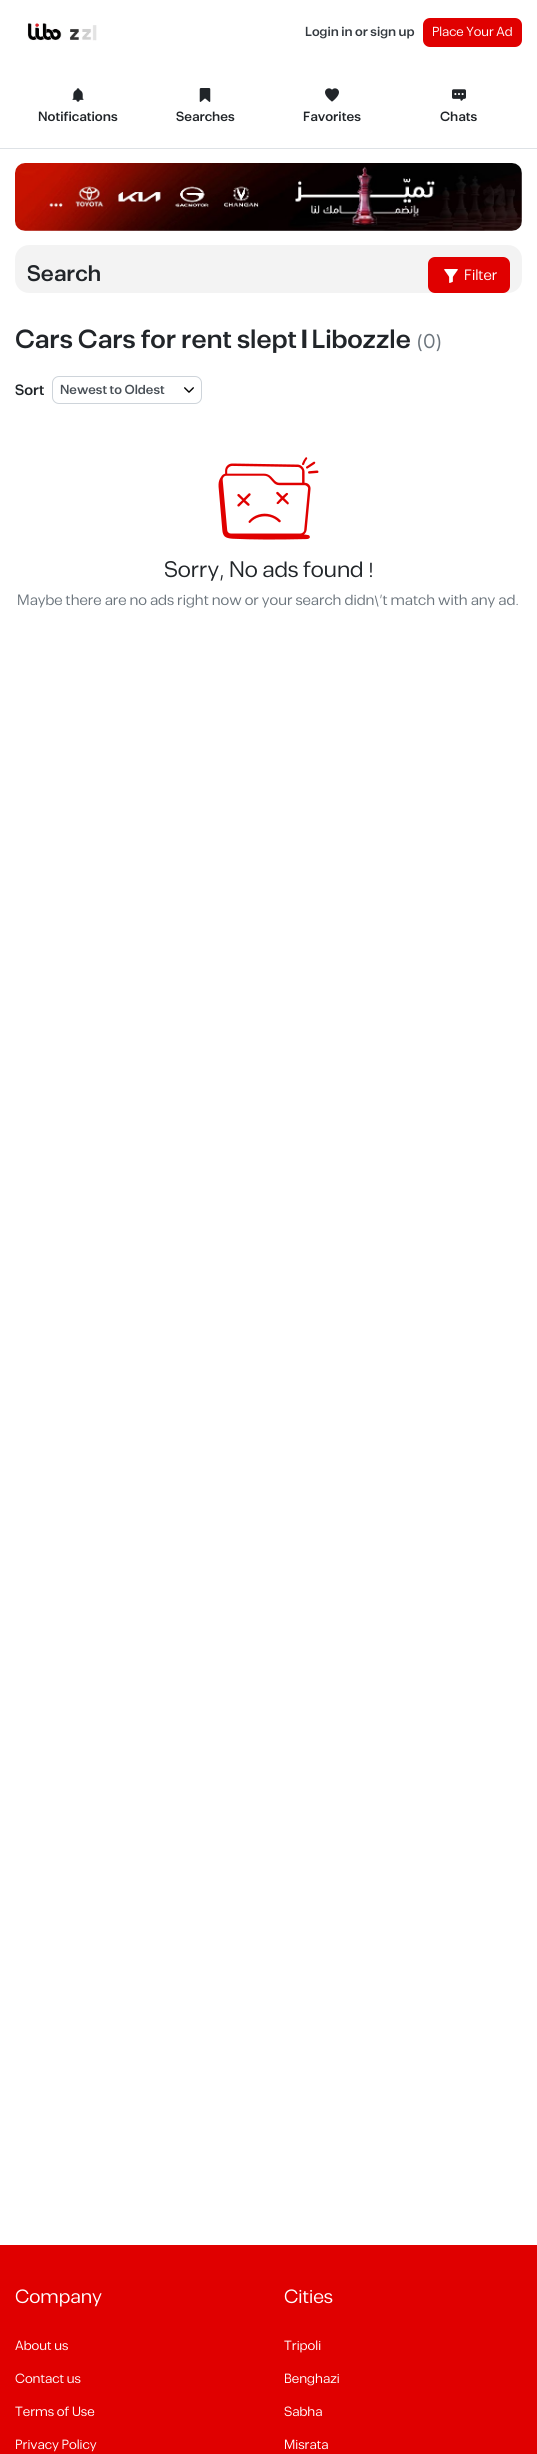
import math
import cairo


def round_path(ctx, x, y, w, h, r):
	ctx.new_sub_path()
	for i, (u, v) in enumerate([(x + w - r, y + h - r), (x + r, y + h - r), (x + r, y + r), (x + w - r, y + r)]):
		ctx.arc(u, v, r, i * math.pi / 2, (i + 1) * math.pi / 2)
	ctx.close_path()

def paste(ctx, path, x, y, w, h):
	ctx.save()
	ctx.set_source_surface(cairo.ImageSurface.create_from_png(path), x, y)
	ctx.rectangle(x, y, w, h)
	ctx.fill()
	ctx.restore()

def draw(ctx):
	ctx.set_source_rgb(1, 1, 1)
	ctx.paint()
	paste(ctx, 'media/1.png', 27, 23, 70, 18)
	ctx.select_font_face('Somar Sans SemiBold')
	ctx.set_font_size(12.25)
	ctx.set_source_rgb(0.204, 0.227, 0.251)
	ctx.move_to(305, 36)
	ctx.show_text('Login in or sign up')
	ctx.set_source_rgb(0.878, 0, 0)
	round_path(ctx, 424, 19, 97, 27, 6)
	ctx.fill_preserve()
	ctx.stroke()
	ctx.select_font_face('Somar Sans')
	ctx.set_source_rgb(1, 1, 1)
	ctx.move_to(432, 36)
	ctx.show_text('Place Your Ad')
	paste(ctx, 'media/2.png', 72, 88, 12, 14)
	ctx.select_font_face('Somar Sans SemiBold')
	ctx.set_font_size(12.5)
	ctx.set_source_rgb(0.129, 0.145, 0.161)
	ctx.move_to(38, 121)
	ctx.show_text('Notifications')
	paste(ctx, 'media/3.png', 199, 88, 12, 14)
	ctx.move_to(176, 121)
	ctx.show_text('Searches')
	paste(ctx, 'media/4.png', 325, 88, 14, 14)
	ctx.move_to(303, 121)
	ctx.show_text('Favorites')
	paste(ctx, 'media/5.png', 452, 89, 14, 12)
	ctx.move_to(440, 121)
	ctx.show_text('Chats')
	ctx.set_source_rgb(0.871, 0.886, 0.902)
	ctx.rectangle(0, 148, 537, 1)
	ctx.fill()
	paste(ctx, 'media/6.png', 15, 163, 507, 68)
	ctx.set_source_rgb(0.953, 0.953, 0.953)
	round_path(ctx, 15, 245, 507, 48, 14)
	ctx.fill()
	ctx.set_font_size(21)
	ctx.set_source_rgb(0.129, 0.145, 0.161)
	ctx.move_to(27, 281)
	ctx.show_text('Search')
	ctx.set_source_rgb(0.878, 0, 0)
	round_path(ctx, 429, 258, 80, 34, 6)
	ctx.fill_preserve()
	ctx.stroke()
	paste(ctx, 'media/7.png', 444, 269, 14, 14)
	ctx.select_font_face('Somar Sans')
	ctx.set_font_size(14)
	ctx.set_source_rgb(1, 1, 1)
	ctx.move_to(464, 280)
	ctx.show_text('Filter')
	ctx.select_font_face('Somar Sans SemiBold')
	ctx.set_font_size(24.5)
	ctx.set_source_rgb(0.129, 0.145, 0.161)
	ctx.move_to(15, 348)
	ctx.show_text('Cars Cars for rent slept | Libozzle')
	ctx.select_font_face('Somar Sans')
	ctx.set_font_size(20)
	ctx.set_source_rgb(0.424, 0.459, 0.49)
	ctx.move_to(416, 348)
	ctx.show_text('(0)')
	ctx.select_font_face('Somar Sans SemiBold')
	ctx.set_font_size(14)
	ctx.set_source_rgb(0.129, 0.145, 0.161)
	ctx.move_to(15, 395)
	ctx.show_text('Sort')
	paste(ctx, 'media/8.png', 184, 387, 10, 6)
	round_path(ctx, 52.5, 376.5, 149, 27, 6.5)
	ctx.set_source_rgb(0.808, 0.831, 0.855)
	ctx.set_line_width(1)
	ctx.stroke()
	ctx.set_font_size(12.25)
	ctx.set_source_rgb(0.286, 0.314, 0.341)
	ctx.move_to(60, 394)
	ctx.show_text('Newest to Oldest')
	paste(ctx, 'media/9.png', 218, 457, 101, 83)
	ctx.select_font_face('Somar Sans')
	ctx.set_font_size(21)
	ctx.set_source_rgb(0.129, 0.145, 0.161)
	ctx.move_to(164, 577)
	ctx.show_text('Sorry, No ads found !')
	ctx.set_font_size(14)
	ctx.set_source_rgb(0.424, 0.459, 0.49)
	ctx.move_to(17, 605)
	ctx.show_text('Maybe there are no ads right now or your search didn\\\'t match with any ad.')
	ctx.set_source_rgb(0.878, 0, 0)
	ctx.rectangle(0, 2245, 537, 209)
	ctx.fill()
	ctx.set_font_size(18)
	ctx.set_source_rgb(1, 1, 1)
	ctx.move_to(15, 2303)
	ctx.show_text('Company')
	ctx.set_font_size(12.5)
	for x, y, s in [
		(15, 2350, 'About us'),
		(15, 2383, 'Contact us'),
		(15, 2416, 'Terms of Use'),
		(15, 2449, 'Privacy Policy'),
	]:
		ctx.move_to(x, y)
		ctx.show_text(s)
	ctx.set_font_size(18)
	ctx.move_to(284, 2303)
	ctx.show_text('Cities')
	ctx.set_font_size(12.5)
	for x, y, s in [
		(284, 2350, 'Tripoli'),
		(284, 2383, 'Benghazi'),
		(284, 2416, 'Sabha'),
		(284, 2449, 'Misrata'),
	]:
		ctx.move_to(x, y)
		ctx.show_text(s)


surface = cairo.ImageSurface(cairo.FORMAT_RGB24, 537, 2454)
ctx = cairo.Context(surface)
options = cairo.FontOptions()
options.set_hint_metrics(cairo.HINT_METRICS_OFF)
options.set_hint_style(cairo.HINT_STYLE_NONE)
ctx.set_font_options(options)
ctx.set_miter_limit(4)
draw(ctx)
surface.write_to_png('image.png')
